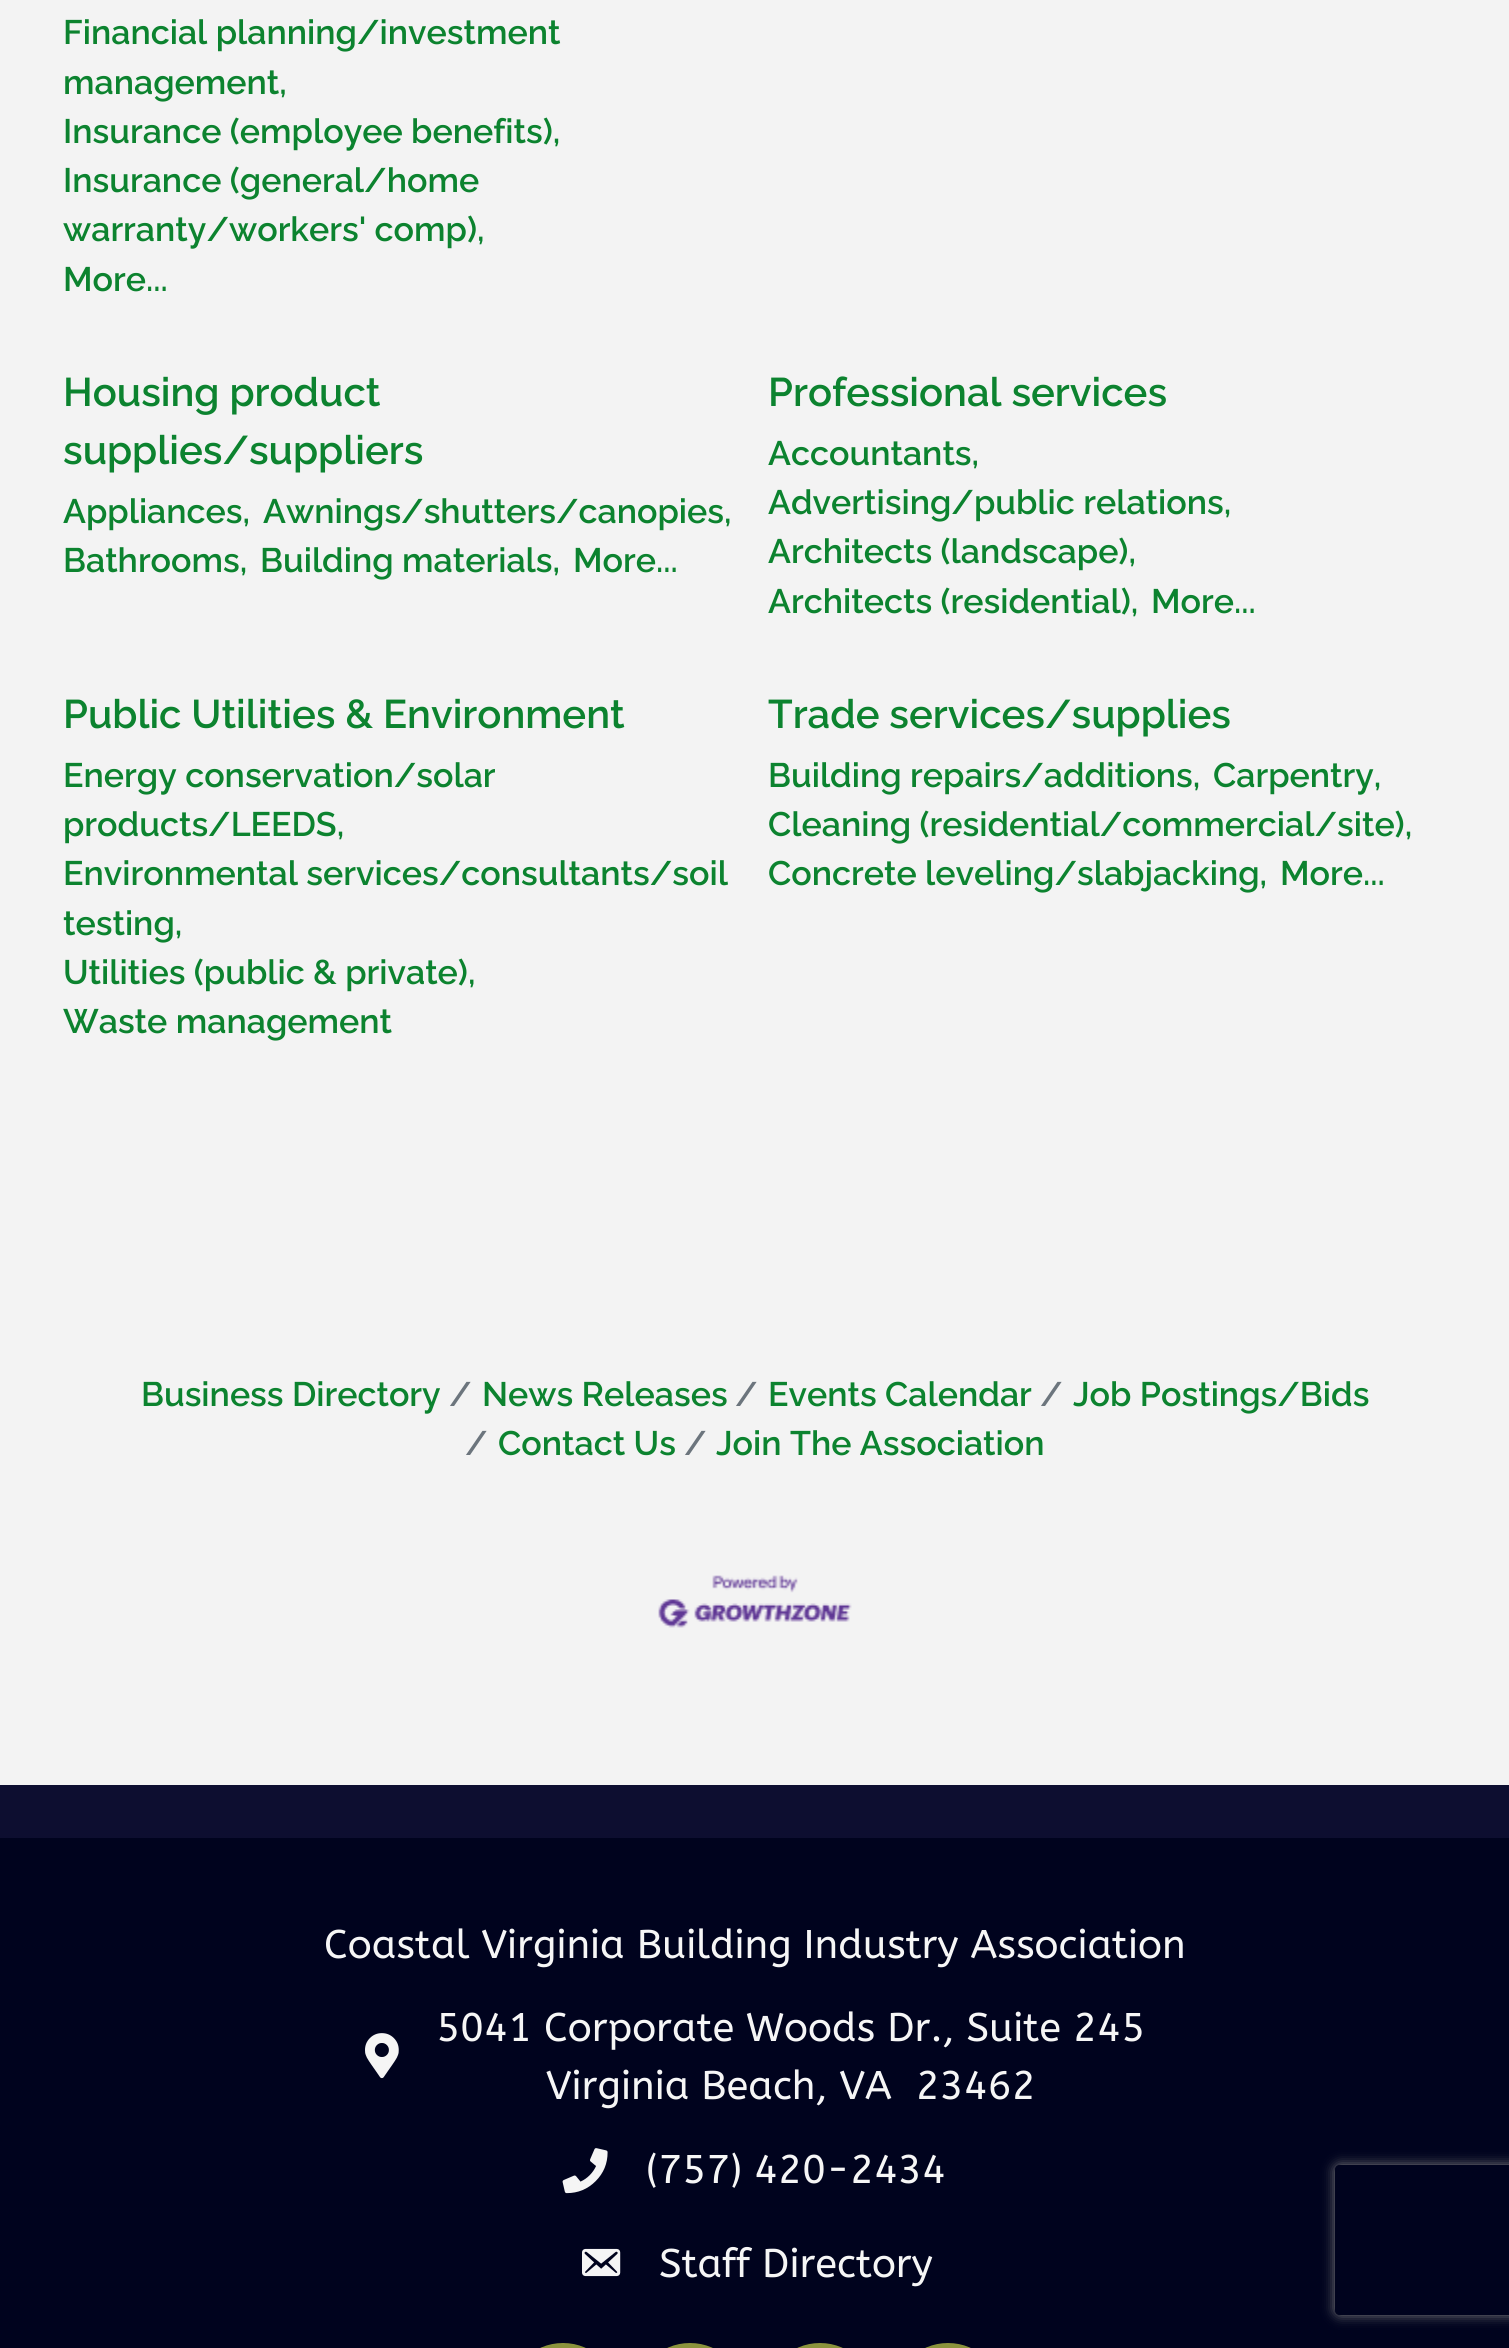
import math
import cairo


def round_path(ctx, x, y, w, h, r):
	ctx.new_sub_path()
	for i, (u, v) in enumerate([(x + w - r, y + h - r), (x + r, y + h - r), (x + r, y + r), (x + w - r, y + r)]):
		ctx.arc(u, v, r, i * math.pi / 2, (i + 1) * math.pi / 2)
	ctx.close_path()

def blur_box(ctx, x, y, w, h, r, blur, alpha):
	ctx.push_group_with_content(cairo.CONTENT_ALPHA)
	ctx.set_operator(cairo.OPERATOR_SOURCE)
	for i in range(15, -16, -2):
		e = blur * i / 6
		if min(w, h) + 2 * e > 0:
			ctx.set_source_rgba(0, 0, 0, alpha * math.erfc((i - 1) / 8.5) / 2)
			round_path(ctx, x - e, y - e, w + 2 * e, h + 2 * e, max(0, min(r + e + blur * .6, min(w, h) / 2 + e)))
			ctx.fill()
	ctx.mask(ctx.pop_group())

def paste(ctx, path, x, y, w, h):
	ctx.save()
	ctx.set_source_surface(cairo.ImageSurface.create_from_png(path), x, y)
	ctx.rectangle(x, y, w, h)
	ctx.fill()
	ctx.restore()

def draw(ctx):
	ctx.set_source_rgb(0.953, 0.953, 0.953)
	ctx.paint()
	ctx.select_font_face('Raleway Thin')
	ctx.set_font_size(34)
	ctx.set_source_rgb(0.047, 0.514, 0.184)
	for x, y, s in [
		(63, 44, 'Financial planning/investment'),
		(63, 94, 'management,'),
		(63, 143, 'Insurance (employee benefits),'),
		(63, 192, 'Insurance (general/home'),
		(63, 241, 'warranty/workers\' comp),'),
		(63, 291, 'More...'),
	]:
		ctx.move_to(x, y)
		ctx.show_text(s)
	ctx.set_font_size(40)
	ctx.move_to(63, 406)
	ctx.show_text('Housing product')
	ctx.move_to(63, 464)
	ctx.show_text('supplies/suppliers')
	ctx.set_font_size(34)
	for x, y, s in [
		(63, 523, 'Appliances,'),
		(263, 523, 'Awnings/shutters/canopies,'),
		(63, 572, 'Bathrooms,'),
		(260, 572, 'Building materials,'),
		(573, 572, 'More...'),
	]:
		ctx.move_to(x, y)
		ctx.show_text(s)
	ctx.set_font_size(40)
	ctx.move_to(768, 406)
	ctx.show_text('Professional services')
	ctx.set_font_size(34)
	for x, y, s in [
		(768, 465, 'Accountants,'),
		(768, 514, 'Advertising/public relations,'),
		(768, 563, 'Architects (landscape),'),
		(768, 613, 'Architects (residential),'),
		(1151, 613, 'More...'),
	]:
		ctx.move_to(x, y)
		ctx.show_text(s)
	ctx.set_font_size(40)
	ctx.move_to(63, 728)
	ctx.show_text('Public Utilities & Environment')
	ctx.set_font_size(34)
	for x, y, s in [
		(63, 787, 'Energy conservation/solar'),
		(63, 836, 'products/LEEDS,'),
		(63, 885, 'Environmental services/consultants/soil'),
		(63, 935, 'testing,'),
		(63, 984, 'Utilities (public & private),'),
		(63, 1033, 'Waste management'),
	]:
		ctx.move_to(x, y)
		ctx.show_text(s)
	ctx.set_font_size(40)
	ctx.move_to(768, 728)
	ctx.show_text('Trade services/supplies')
	ctx.set_font_size(34)
	for x, y, s in [
		(768, 787, 'Building repairs/additions,'),
		(1213, 787, 'Carpentry,'),
		(768, 836, 'Cleaning (residential/commercial/site),'),
		(768, 885, 'Concrete leveling/slabjacking,'),
		(1280, 885, 'More...'),
		(141, 1406, 'Business Directory'),
	]:
		ctx.move_to(x, y)
		ctx.show_text(s)
	ctx.set_source_rgb(0.424, 0.459, 0.49)
	ctx.move_to(449, 1406)
	ctx.show_text('/')
	ctx.set_source_rgb(0.047, 0.514, 0.184)
	ctx.move_to(482, 1406)
	ctx.show_text('News Releases')
	ctx.set_source_rgb(0.424, 0.459, 0.49)
	ctx.move_to(735, 1406)
	ctx.show_text('/')
	ctx.set_source_rgb(0.047, 0.514, 0.184)
	ctx.move_to(768, 1406)
	ctx.show_text('Events Calendar')
	ctx.set_source_rgb(0.424, 0.459, 0.49)
	ctx.move_to(1040, 1406)
	ctx.show_text('/')
	ctx.set_source_rgb(0.047, 0.514, 0.184)
	ctx.move_to(1073, 1406)
	ctx.show_text('Job Postings/Bids')
	ctx.set_source_rgb(0.424, 0.459, 0.49)
	ctx.move_to(465, 1455)
	ctx.show_text('/')
	ctx.set_source_rgb(0.047, 0.514, 0.184)
	ctx.move_to(498, 1455)
	ctx.show_text('Contact Us')
	ctx.set_source_rgb(0.424, 0.459, 0.49)
	ctx.move_to(684, 1455)
	ctx.show_text('/')
	ctx.set_source_rgb(0.047, 0.514, 0.184)
	ctx.move_to(716, 1455)
	ctx.show_text('Join The Association')
	paste(ctx, 'media/1.png', 658, 1575, 194, 53)
	ctx.set_source_rgb(0.051, 0.055, 0.188)
	ctx.rectangle(0, 1785, 1509, 53)
	ctx.fill()
	ctx.set_source_rgb(0, 0.012, 0.118)
	ctx.rectangle(0, 1838, 1509, 510)
	ctx.fill()
	ctx.select_font_face('ABeeZee')
	ctx.set_font_size(40)
	ctx.set_source_rgb(0.961, 0.961, 0.961)
	ctx.move_to(324, 1958)
	ctx.show_text('Coastal Virginia Building Industry Association')
	paste(ctx, 'media/2.png', 365, 2033, 34, 46)
	ctx.move_to(436, 2041)
	ctx.show_text('5041 Corporate Woods Dr., Suite 245')
	ctx.move_to(546, 2099)
	ctx.show_text('Virginia Beach, VA  23462')
	paste(ctx, 'media/3.png', 562, 2148, 46, 46)
	ctx.move_to(646, 2183)
	ctx.show_text('(757) 420-2434')
	paste(ctx, 'media/4.png', 582, 2248, 39, 29)
	ctx.move_to(659, 2277)
	ctx.show_text('Staff Directory')
	ctx.set_source_rgb(0.545, 0.576, 0.235)
	round_path(ctx, 508, 2343, 110, 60, 55)
	ctx.fill()
	round_path(ctx, 635, 2343, 110, 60, 55)
	ctx.fill()
	round_path(ctx, 765, 2343, 110, 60, 55)
	ctx.fill()
	round_path(ctx, 893, 2343, 110, 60, 55)
	ctx.fill()
	ctx.save()
	ctx.set_fill_rule(cairo.FILL_RULE_EVEN_ODD)
	ctx.new_path()
	ctx.move_to(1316, 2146)
	ctx.line_to(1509, 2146)
	ctx.line_to(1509, 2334)
	ctx.line_to(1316, 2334)
	ctx.close_path()
	ctx.move_to(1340, 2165)
	ctx.line_to(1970, 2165)
	ctx.curve_to(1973, 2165, 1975, 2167, 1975, 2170)
	ctx.line_to(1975, 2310)
	ctx.curve_to(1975, 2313, 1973, 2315, 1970, 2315)
	ctx.line_to(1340, 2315)
	ctx.curve_to(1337, 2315, 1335, 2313, 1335, 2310)
	ctx.line_to(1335, 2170)
	ctx.curve_to(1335, 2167, 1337, 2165, 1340, 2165)
	ctx.close_path()
	ctx.clip()
	ctx.set_source_rgb(0.502, 0.502, 0.502)
	blur_box(ctx, 1335, 2165, 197, 150, 5, 6, 1)
	ctx.restore()


surface = cairo.ImageSurface(cairo.FORMAT_RGB24, 1509, 2348)
ctx = cairo.Context(surface)
options = cairo.FontOptions()
options.set_hint_metrics(cairo.HINT_METRICS_OFF)
options.set_hint_style(cairo.HINT_STYLE_NONE)
ctx.set_font_options(options)
ctx.set_miter_limit(4)
draw(ctx)
surface.write_to_png('image.png')
